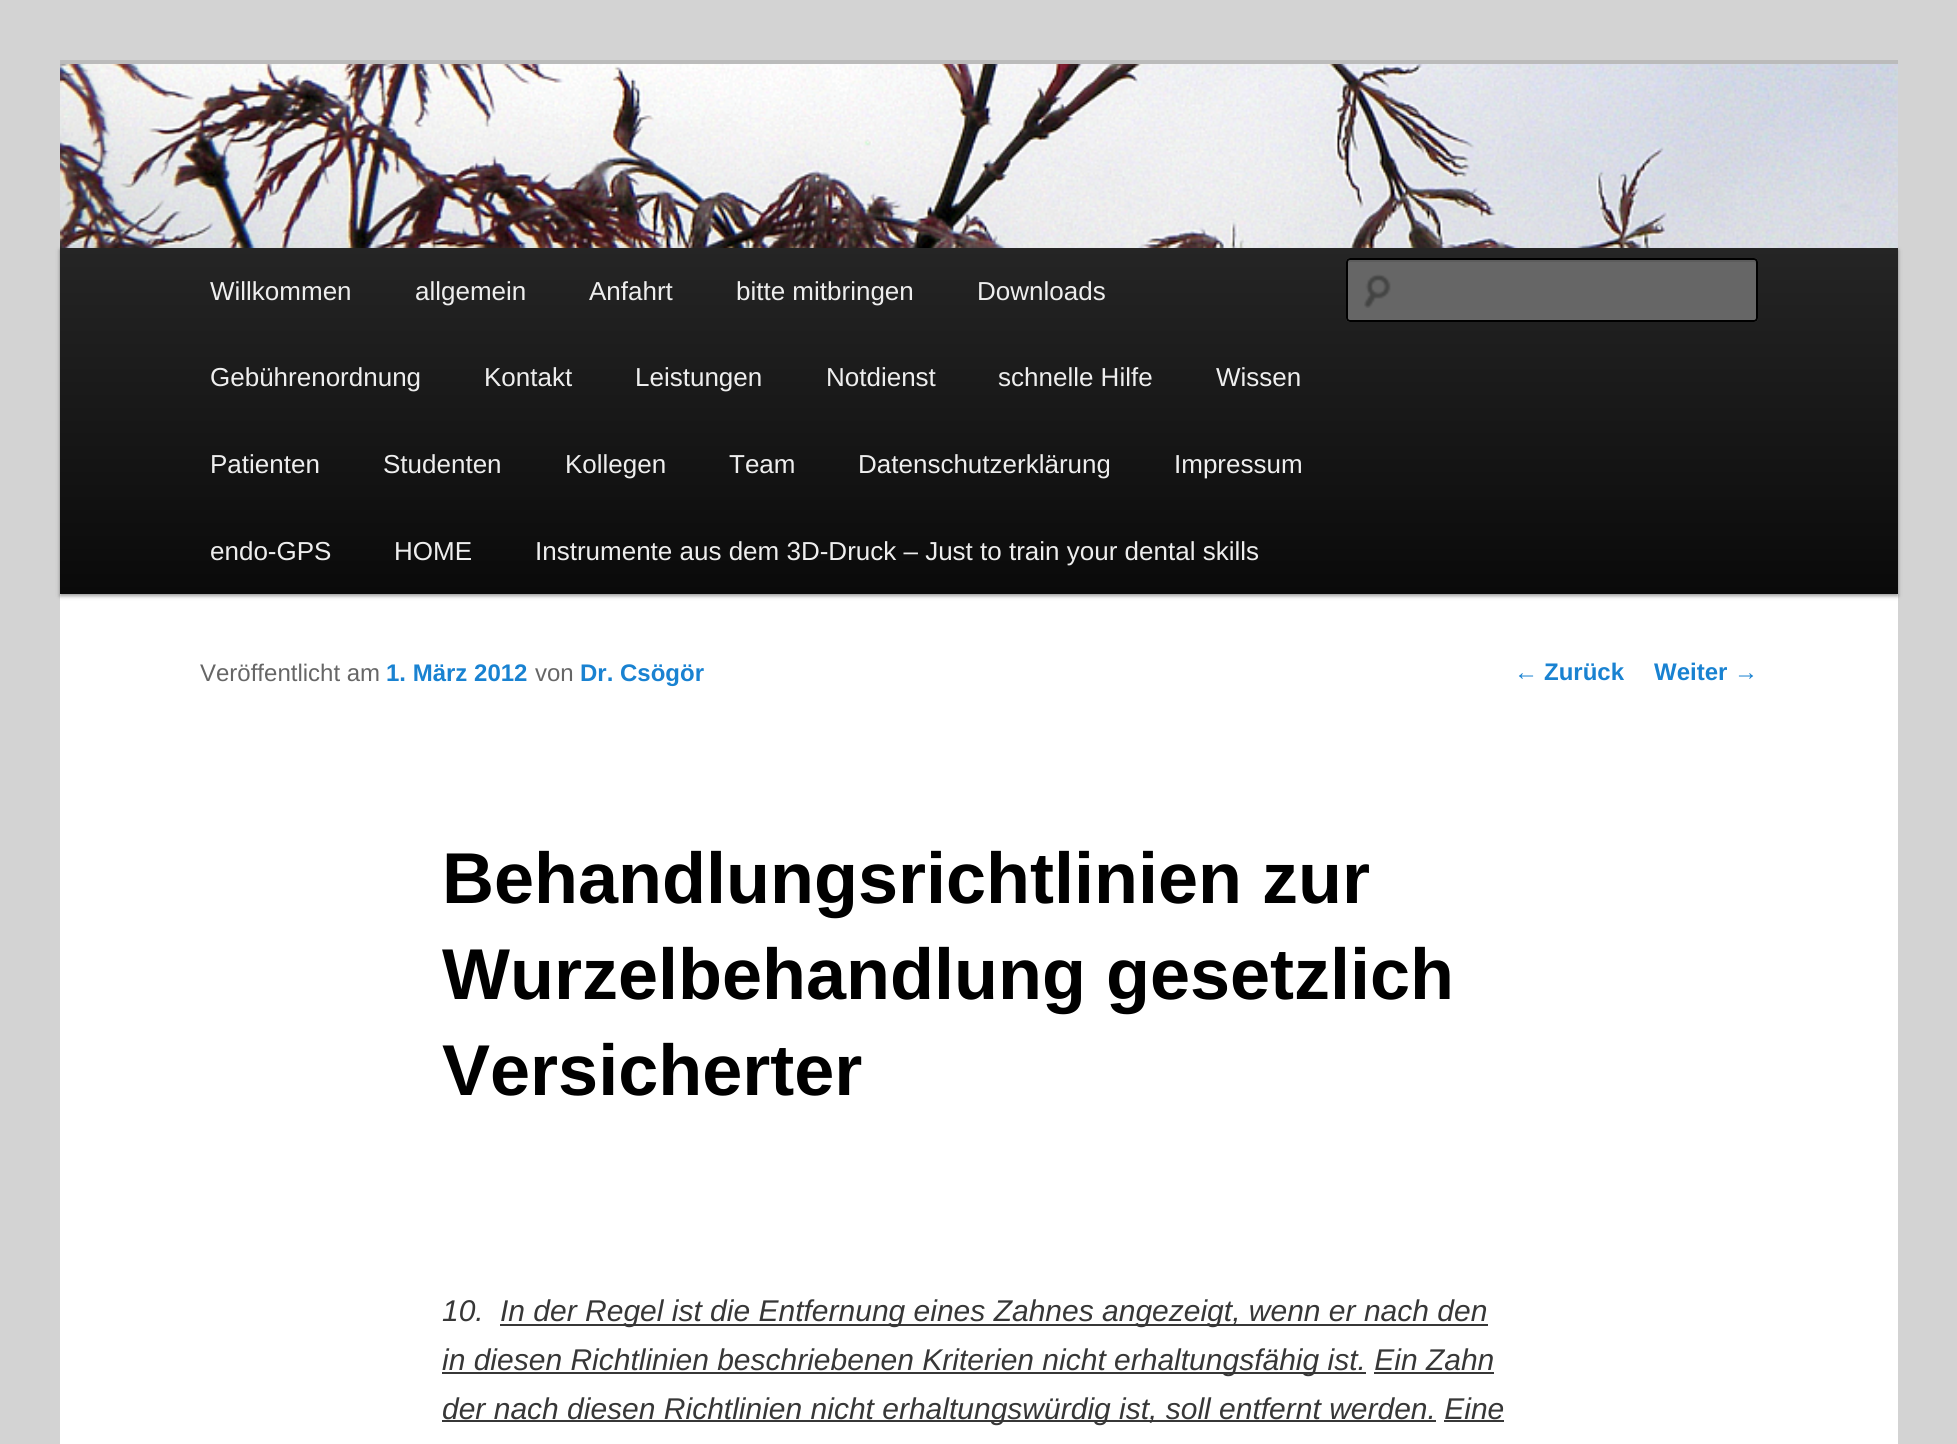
import math
import cairo


def round_path(ctx, x, y, w, h, r):
	ctx.new_sub_path()
	for i, (u, v) in enumerate([(x + w - r, y + h - r), (x + r, y + h - r), (x + r, y + r), (x + w - r, y + r)]):
		ctx.arc(u, v, r, i * math.pi / 2, (i + 1) * math.pi / 2)
	ctx.close_path()

def blur_box(ctx, x, y, w, h, r, blur, alpha):
	ctx.push_group_with_content(cairo.CONTENT_ALPHA)
	ctx.set_operator(cairo.OPERATOR_SOURCE)
	for i in range(15, -16, -2):
		e = blur * i / 6
		if min(w, h) + 2 * e > 0:
			ctx.set_source_rgba(0, 0, 0, alpha * math.erfc((i - 1) / 8.5) / 2)
			round_path(ctx, x - e, y - e, w + 2 * e, h + 2 * e, max(0, min(r + e + blur * .6, min(w, h) / 2 + e)))
			ctx.fill()
	ctx.mask(ctx.pop_group())

def paste(ctx, path, x, y, w, h):
	ctx.save()
	ctx.set_source_surface(cairo.ImageSurface.create_from_png(path), x, y)
	ctx.rectangle(x, y, w, h)
	ctx.fill()
	ctx.restore()

def draw(ctx):
	ctx.set_source_rgb(0.827, 0.827, 0.827)
	ctx.paint()
	ctx.set_source_rgb(1, 1, 1)
	ctx.rectangle(60, 594, 1838, 850)
	ctx.fill()
	ctx.set_source_rgb(0.733, 0.733, 0.733)
	ctx.rectangle(60, 60, 1838, 4)
	ctx.fill()
	ctx.set_source_rgb(0, 0, 0)
	blur_box(ctx, 60, 250, 1838, 346, 0, 2, 0.4)
	paste(ctx, 'media/1.png', 60, 64, 1838, 184)
	gradient = cairo.LinearGradient(979, 248, 979, 594)
	gradient.add_color_stop_rgba(0, 0.145, 0.145, 0.145, 1)
	gradient.add_color_stop_rgba(1, 0.039, 0.039, 0.039, 1)
	ctx.set_source(gradient)
	ctx.rectangle(60, 248, 1838, 346)
	ctx.fill()
	ctx.select_font_face('Liberation Sans')
	ctx.set_font_size(26)
	ctx.set_source_rgb(0.933, 0.933, 0.933)
	for x, y, s in [
		(210, 300, 'Willkommen'),
		(415, 300, 'allgemein'),
		(589, 300, 'Anfahrt'),
		(736, 300, 'bitte mitbringen'),
		(977, 300, 'Downloads'),
		(210, 386, 'Gebührenordnung'),
		(484, 386, 'Kontakt'),
		(635, 386, 'Leistungen'),
		(826, 386, 'Notdienst'),
		(998, 386, 'schnelle Hilfe'),
		(1216, 386, 'Wissen'),
		(210, 473, 'Patienten'),
		(383, 473, 'Studenten'),
		(565, 473, 'Kollegen'),
		(729, 473, 'Team'),
		(858, 473, 'Datenschutzerklärung'),
		(1174, 473, 'Impressum'),
		(210, 560, 'endo-GPS'),
		(394, 560, 'HOME'),
		(535, 560, 'Instrumente aus dem 3D-Druck – Just to train your dental skills'),
	]:
		ctx.move_to(x, y)
		ctx.show_text(s)
	ctx.set_source_rgb(0.4, 0.4, 0.4)
	round_path(ctx, 1346, 258, 412, 64, 4)
	ctx.fill()
	paste(ctx, 'media/2.png', 1364, 274, 27, 34)
	ctx.set_source_rgb(0.361, 0.361, 0.361)
	ctx.new_path()
	ctx.move_to(1350, 262)
	ctx.line_to(1754, 262)
	ctx.curve_to(1755, 262, 1756, 263, 1756, 264)
	ctx.line_to(1756, 261)
	ctx.line_to(1754, 260)
	ctx.line_to(1350, 260)
	ctx.curve_to(1348, 260, 1348, 262, 1348, 264)
	ctx.curve_to(1348, 263, 1349, 262, 1350, 262)
	ctx.close_path()
	ctx.fill()
	round_path(ctx, 1347, 259, 410, 62, 3)
	ctx.set_source_rgb(0, 0, 0)
	ctx.stroke()
	ctx.set_font_size(24)
	ctx.set_source_rgb(0.4, 0.4, 0.4)
	ctx.move_to(200, 681)
	ctx.show_text('Veröffentlicht am')
	ctx.select_font_face('Liberation Sans', cairo.FONT_SLANT_NORMAL, cairo.FONT_WEIGHT_BOLD)
	ctx.set_source_rgb(0.098, 0.51, 0.82)
	ctx.move_to(386, 681)
	ctx.show_text('1. März 2012')
	ctx.select_font_face('Liberation Sans')
	ctx.set_source_rgb(0.4, 0.4, 0.4)
	ctx.move_to(535, 681)
	ctx.show_text('von')
	ctx.select_font_face('Liberation Sans', cairo.FONT_SLANT_NORMAL, cairo.FONT_WEIGHT_BOLD)
	ctx.set_source_rgb(0.098, 0.51, 0.82)
	ctx.move_to(580, 681)
	ctx.show_text('Dr. Csögör')
	ctx.set_font_size(72)
	ctx.set_source_rgb(0, 0, 0)
	for x, y, s in [
		(442, 903, 'Behandlungsrichtlinien zur'),
		(442, 999, 'Wurzelbehandlung gesetzlich'),
		(442, 1095, 'Versicherter'),
	]:
		ctx.move_to(x, y)
		ctx.show_text(s)
	ctx.select_font_face('Liberation Sans', cairo.FONT_SLANT_ITALIC)
	ctx.set_font_size(30)
	ctx.set_source_rgb(0.216, 0.216, 0.216)
	ctx.move_to(442, 1321)
	ctx.show_text('10.')
	ctx.rectangle(500, 1324, 988, 2)
	ctx.fill()
	ctx.move_to(500, 1321)
	ctx.show_text('In der Regel ist die Entfernung eines Zahnes angezeigt, wenn er nach den')
	ctx.rectangle(442, 1372, 924, 2)
	ctx.fill()
	ctx.move_to(442, 1370)
	ctx.show_text('in diesen Richtlinien beschriebenen Kriterien nicht erhaltungsfähig ist. Ein Zahn')
	ctx.rectangle(1374, 1372, 120, 2)
	ctx.fill()
	ctx.rectangle(442, 1420, 994, 2)
	ctx.fill()
	ctx.move_to(442, 1419)
	ctx.show_text('der nach diesen Richtlinien nicht erhaltungswürdig ist, soll entfernt werden. Eine')
	ctx.rectangle(1444, 1420, 60, 2)
	ctx.fill()
	ctx.select_font_face('Liberation Sans')
	ctx.set_font_size(24)
	ctx.set_source_rgb(0.098, 0.51, 0.82)
	ctx.move_to(1514, 680)
	ctx.show_text('←')
	ctx.select_font_face('Liberation Sans', cairo.FONT_SLANT_NORMAL, cairo.FONT_WEIGHT_BOLD)
	ctx.move_to(1544, 680)
	ctx.show_text('Zurück')
	ctx.move_to(1654, 680)
	ctx.show_text('Weiter')
	ctx.select_font_face('Liberation Sans')
	ctx.move_to(1734, 680)
	ctx.show_text('→')


surface = cairo.ImageSurface(cairo.FORMAT_RGB24, 1957, 1444)
ctx = cairo.Context(surface)
options = cairo.FontOptions()
options.set_hint_metrics(cairo.HINT_METRICS_OFF)
options.set_hint_style(cairo.HINT_STYLE_NONE)
ctx.set_font_options(options)
ctx.set_miter_limit(4)
draw(ctx)
surface.write_to_png('image.png')
